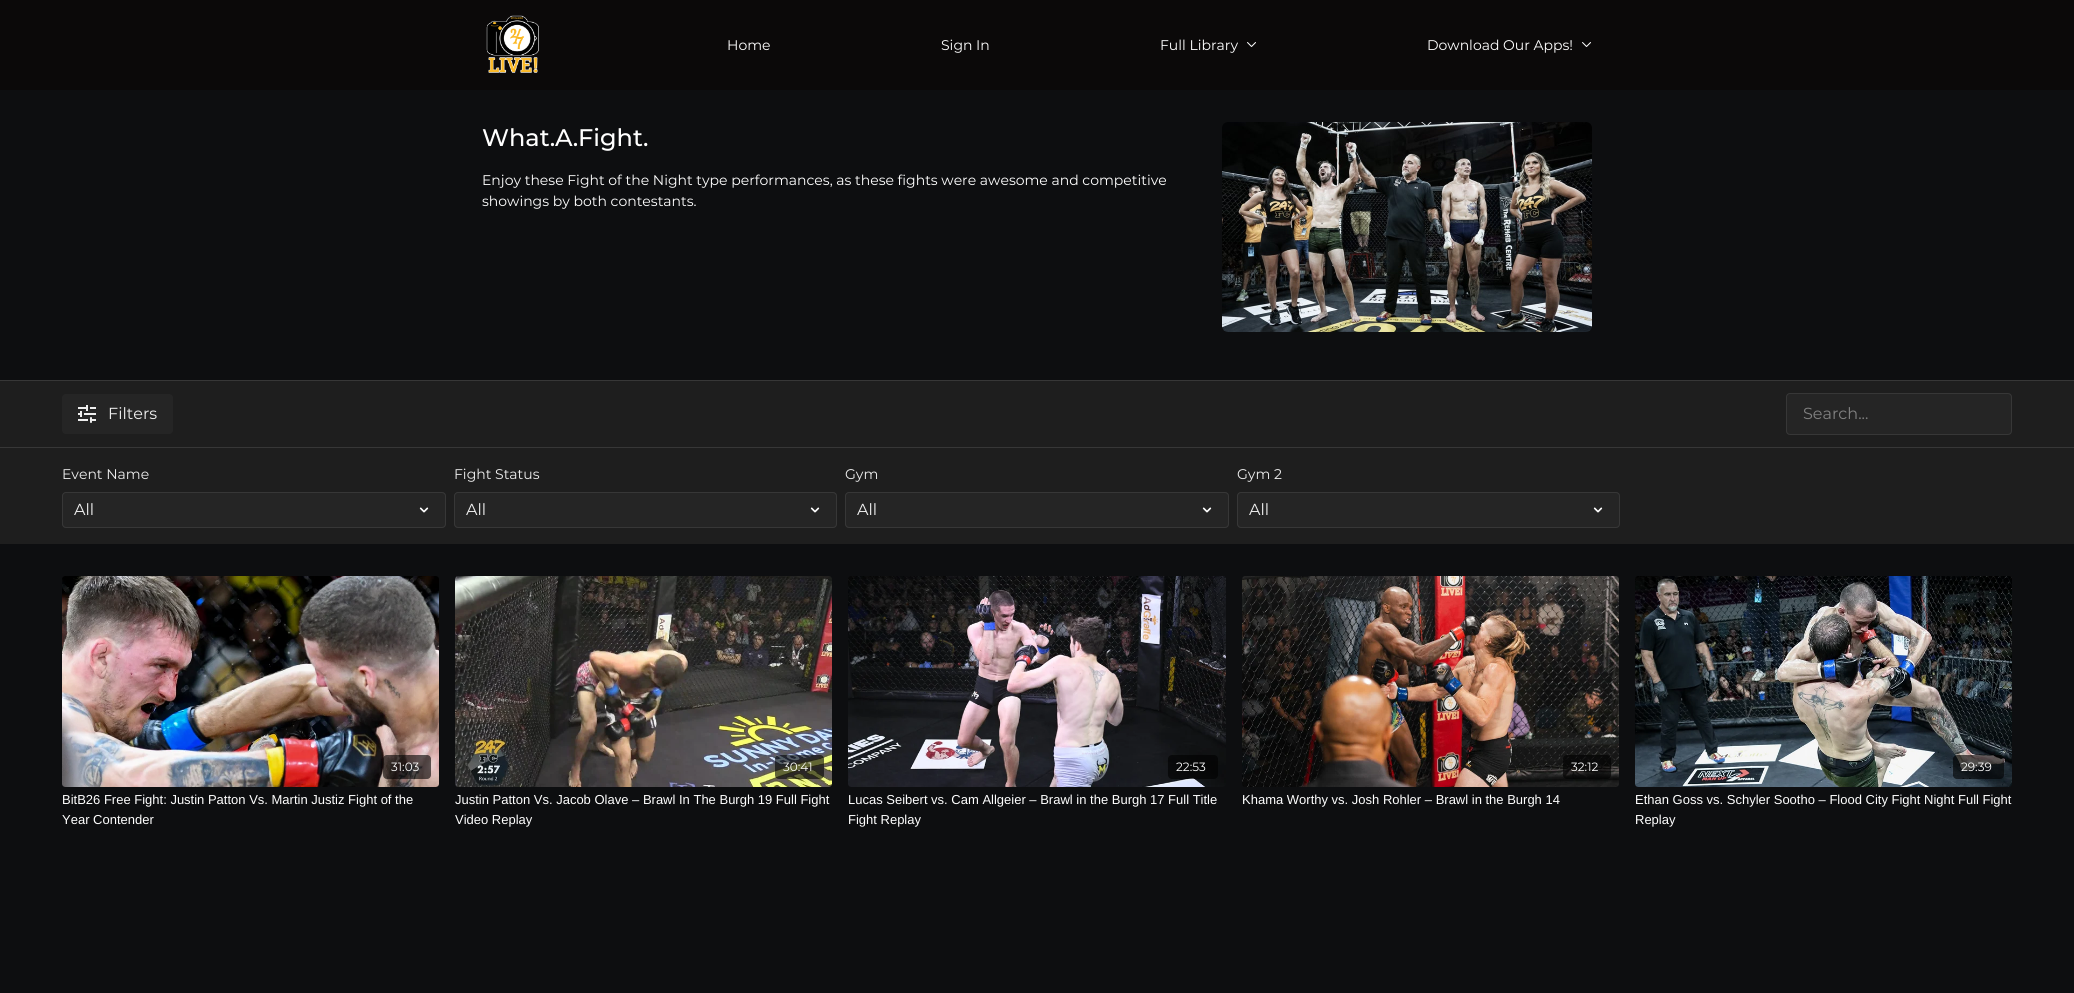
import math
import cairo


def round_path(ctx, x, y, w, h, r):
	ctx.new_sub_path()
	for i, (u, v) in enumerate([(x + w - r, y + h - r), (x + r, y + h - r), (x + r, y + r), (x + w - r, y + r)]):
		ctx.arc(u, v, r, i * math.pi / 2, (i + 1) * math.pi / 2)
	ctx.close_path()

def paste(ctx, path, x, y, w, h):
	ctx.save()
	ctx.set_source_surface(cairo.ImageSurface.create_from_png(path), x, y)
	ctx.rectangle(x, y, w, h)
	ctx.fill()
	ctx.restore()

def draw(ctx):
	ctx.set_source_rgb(0.051, 0.055, 0.063)
	ctx.paint()
	ctx.set_source_rgb(0.043, 0.039, 0.039)
	ctx.rectangle(0, 0, 2074, 90)
	ctx.fill()
	paste(ctx, 'media/1.png', 486, 15, 53, 58)
	ctx.select_font_face('Montserrat')
	ctx.set_font_size(14)
	ctx.set_source_rgb(1, 1, 1)
	for x, y, s in [
		(727, 50, 'Home'),
		(941, 50, 'Sign In'),
		(1160, 50, 'Full Library'),
	]:
		ctx.move_to(x, y)
		ctx.show_text(s)
	paste(ctx, 'media/2.png', 1247, 42, 9, 5)
	ctx.move_to(1427, 50)
	ctx.show_text('Download Our Apps!')
	paste(ctx, 'media/2.png', 1582, 42, 9, 5)
	ctx.set_source_rgb(0.216, 0.216, 0.216)
	ctx.rectangle(0, 380, 2074, 1)
	ctx.fill()
	ctx.select_font_face('Montserrat Medium')
	ctx.set_font_size(24)
	ctx.set_source_rgb(1, 1, 1)
	ctx.move_to(482, 146)
	ctx.show_text('What.A.Fight.')
	ctx.select_font_face('Montserrat')
	ctx.set_font_size(14)
	ctx.move_to(482, 185)
	ctx.show_text('Enjoy these Fight of the Night type performances, as these fights were awesome and competitive')
	ctx.move_to(482, 206)
	ctx.show_text('showings by both contestants.')
	paste(ctx, 'media/3.png', 1222, 122, 370, 210)
	ctx.set_source_rgb(0.118, 0.118, 0.118)
	ctx.rectangle(0, 381, 2074, 163)
	ctx.fill()
	ctx.set_source_rgb(0.216, 0.216, 0.216)
	ctx.rectangle(0, 447, 2074, 1)
	ctx.fill()
	ctx.set_source_rgb(0.145, 0.145, 0.145)
	round_path(ctx, 62, 394, 111, 40, 4)
	ctx.fill()
	paste(ctx, 'media/4.png', 78, 405, 18, 18)
	ctx.set_font_size(16)
	ctx.set_source_rgb(0.933, 0.933, 0.933)
	ctx.move_to(108, 419)
	ctx.show_text('Filters')
	ctx.set_source_rgb(0.145, 0.145, 0.145)
	round_path(ctx, 1786.5, 393.5, 225, 41, 3.5)
	ctx.fill_preserve()
	ctx.set_source_rgb(0.216, 0.216, 0.216)
	ctx.set_line_width(1)
	ctx.stroke()
	ctx.set_source_rgb(0.506, 0.506, 0.506)
	ctx.move_to(1803, 419)
	ctx.show_text('Search...')
	ctx.set_font_size(14)
	ctx.set_source_rgb(0.933, 0.933, 0.933)
	ctx.move_to(62, 479)
	ctx.show_text('Event Name')
	ctx.set_source_rgb(0.145, 0.145, 0.145)
	round_path(ctx, 62, 492, 384, 36, 4)
	ctx.fill()
	paste(ctx, 'media/5.png', 419, 507, 10, 6)
	round_path(ctx, 62.5, 492.5, 383, 35, 3.5)
	ctx.set_source_rgb(0.216, 0.216, 0.216)
	ctx.stroke()
	ctx.set_font_size(16)
	ctx.set_source_rgb(0.933, 0.933, 0.933)
	ctx.move_to(74, 515)
	ctx.show_text('All')
	ctx.set_font_size(14)
	ctx.move_to(454, 479)
	ctx.show_text('Fight Status')
	ctx.set_source_rgb(0.145, 0.145, 0.145)
	round_path(ctx, 454, 492, 383, 36, 4)
	ctx.fill()
	paste(ctx, 'media/5.png', 810, 507, 10, 6)
	round_path(ctx, 454.5, 492.5, 382, 35, 3.5)
	ctx.set_source_rgb(0.216, 0.216, 0.216)
	ctx.stroke()
	ctx.set_font_size(16)
	ctx.set_source_rgb(0.933, 0.933, 0.933)
	ctx.move_to(466, 515)
	ctx.show_text('All')
	ctx.set_font_size(14)
	ctx.move_to(845, 479)
	ctx.show_text('Gym')
	ctx.set_source_rgb(0.145, 0.145, 0.145)
	round_path(ctx, 845, 492, 384, 36, 4)
	ctx.fill()
	paste(ctx, 'media/5.png', 1202, 507, 10, 6)
	round_path(ctx, 845.5, 492.5, 383, 35, 3.5)
	ctx.set_source_rgb(0.216, 0.216, 0.216)
	ctx.stroke()
	ctx.set_font_size(16)
	ctx.set_source_rgb(0.933, 0.933, 0.933)
	ctx.move_to(857, 515)
	ctx.show_text('All')
	ctx.set_font_size(14)
	ctx.move_to(1237, 479)
	ctx.show_text('Gym 2')
	ctx.set_source_rgb(0.145, 0.145, 0.145)
	round_path(ctx, 1237, 492, 383, 36, 4)
	ctx.fill()
	paste(ctx, 'media/5.png', 1593, 507, 10, 6)
	round_path(ctx, 1237.5, 492.5, 382, 35, 3.5)
	ctx.set_source_rgb(0.216, 0.216, 0.216)
	ctx.stroke()
	ctx.set_font_size(16)
	ctx.set_source_rgb(0.933, 0.933, 0.933)
	ctx.move_to(1249, 515)
	ctx.show_text('All')
	paste(ctx, 'media/6.png', 62, 576, 377, 211)
	ctx.set_source_rgba(0, 0, 0, 0.6)
	round_path(ctx, 383, 755, 48, 24, 4)
	ctx.fill()
	ctx.set_font_size(12)
	ctx.set_source_rgb(1, 1, 1)
	ctx.move_to(391, 771)
	ctx.show_text('31:03')
	ctx.select_font_face('Liberation Sans')
	ctx.set_font_size(13)
	ctx.move_to(62, 804)
	ctx.show_text('BitB26 Free Fight: Justin Patton Vs. Martin Justiz Fight of the')
	ctx.move_to(62, 824)
	ctx.show_text('Year Contender')
	paste(ctx, 'media/7.png', 455, 576, 377, 211)
	ctx.set_source_rgba(0, 0, 0, 0.6)
	round_path(ctx, 775, 755, 49, 24, 4)
	ctx.fill()
	ctx.select_font_face('Montserrat')
	ctx.set_font_size(12)
	ctx.set_source_rgb(1, 1, 1)
	ctx.move_to(783, 771)
	ctx.show_text('30:41')
	ctx.select_font_face('Liberation Sans')
	ctx.set_font_size(13)
	ctx.move_to(455, 804)
	ctx.show_text('Justin Patton Vs. Jacob Olave – Brawl In The Burgh 19 Full Fight')
	ctx.move_to(455, 824)
	ctx.show_text('Video Replay')
	paste(ctx, 'media/8.png', 848, 576, 378, 211)
	ctx.set_source_rgba(0, 0, 0, 0.6)
	round_path(ctx, 1168, 755, 50, 24, 4)
	ctx.fill()
	ctx.select_font_face('Montserrat')
	ctx.set_font_size(12)
	ctx.set_source_rgb(1, 1, 1)
	ctx.move_to(1176, 771)
	ctx.show_text('22:53')
	ctx.select_font_face('Liberation Sans')
	ctx.set_font_size(13)
	ctx.move_to(848, 804)
	ctx.show_text('Lucas Seibert vs. Cam Allgeier – Brawl in the Burgh 17 Full Title')
	ctx.move_to(848, 824)
	ctx.show_text('Fight Replay')
	paste(ctx, 'media/9.png', 1242, 576, 377, 211)
	ctx.set_source_rgba(0, 0, 0, 0.6)
	round_path(ctx, 1563, 755, 48, 24, 4)
	ctx.fill()
	ctx.select_font_face('Montserrat')
	ctx.set_font_size(12)
	ctx.set_source_rgb(1, 1, 1)
	ctx.move_to(1571, 771)
	ctx.show_text('32:12')
	ctx.select_font_face('Liberation Sans')
	ctx.set_font_size(13)
	ctx.move_to(1242, 804)
	ctx.show_text('Khama Worthy vs. Josh Rohler – Brawl in the Burgh 14')
	paste(ctx, 'media/10.png', 1635, 576, 377, 211)
	ctx.set_source_rgba(0, 0, 0, 0.6)
	round_path(ctx, 1953, 755, 51, 24, 4)
	ctx.fill()
	ctx.select_font_face('Montserrat')
	ctx.set_font_size(12)
	ctx.set_source_rgb(1, 1, 1)
	ctx.move_to(1961, 771)
	ctx.show_text('29:39')
	ctx.select_font_face('Liberation Sans')
	ctx.set_font_size(13)
	ctx.move_to(1635, 804)
	ctx.show_text('Ethan Goss vs. Schyler Sootho – Flood City Fight Night Full Fight')
	ctx.move_to(1635, 824)
	ctx.show_text('Replay')


surface = cairo.ImageSurface(cairo.FORMAT_RGB24, 2074, 993)
ctx = cairo.Context(surface)
options = cairo.FontOptions()
options.set_hint_metrics(cairo.HINT_METRICS_OFF)
options.set_hint_style(cairo.HINT_STYLE_NONE)
ctx.set_font_options(options)
ctx.set_miter_limit(4)
draw(ctx)
surface.write_to_png('image.png')
